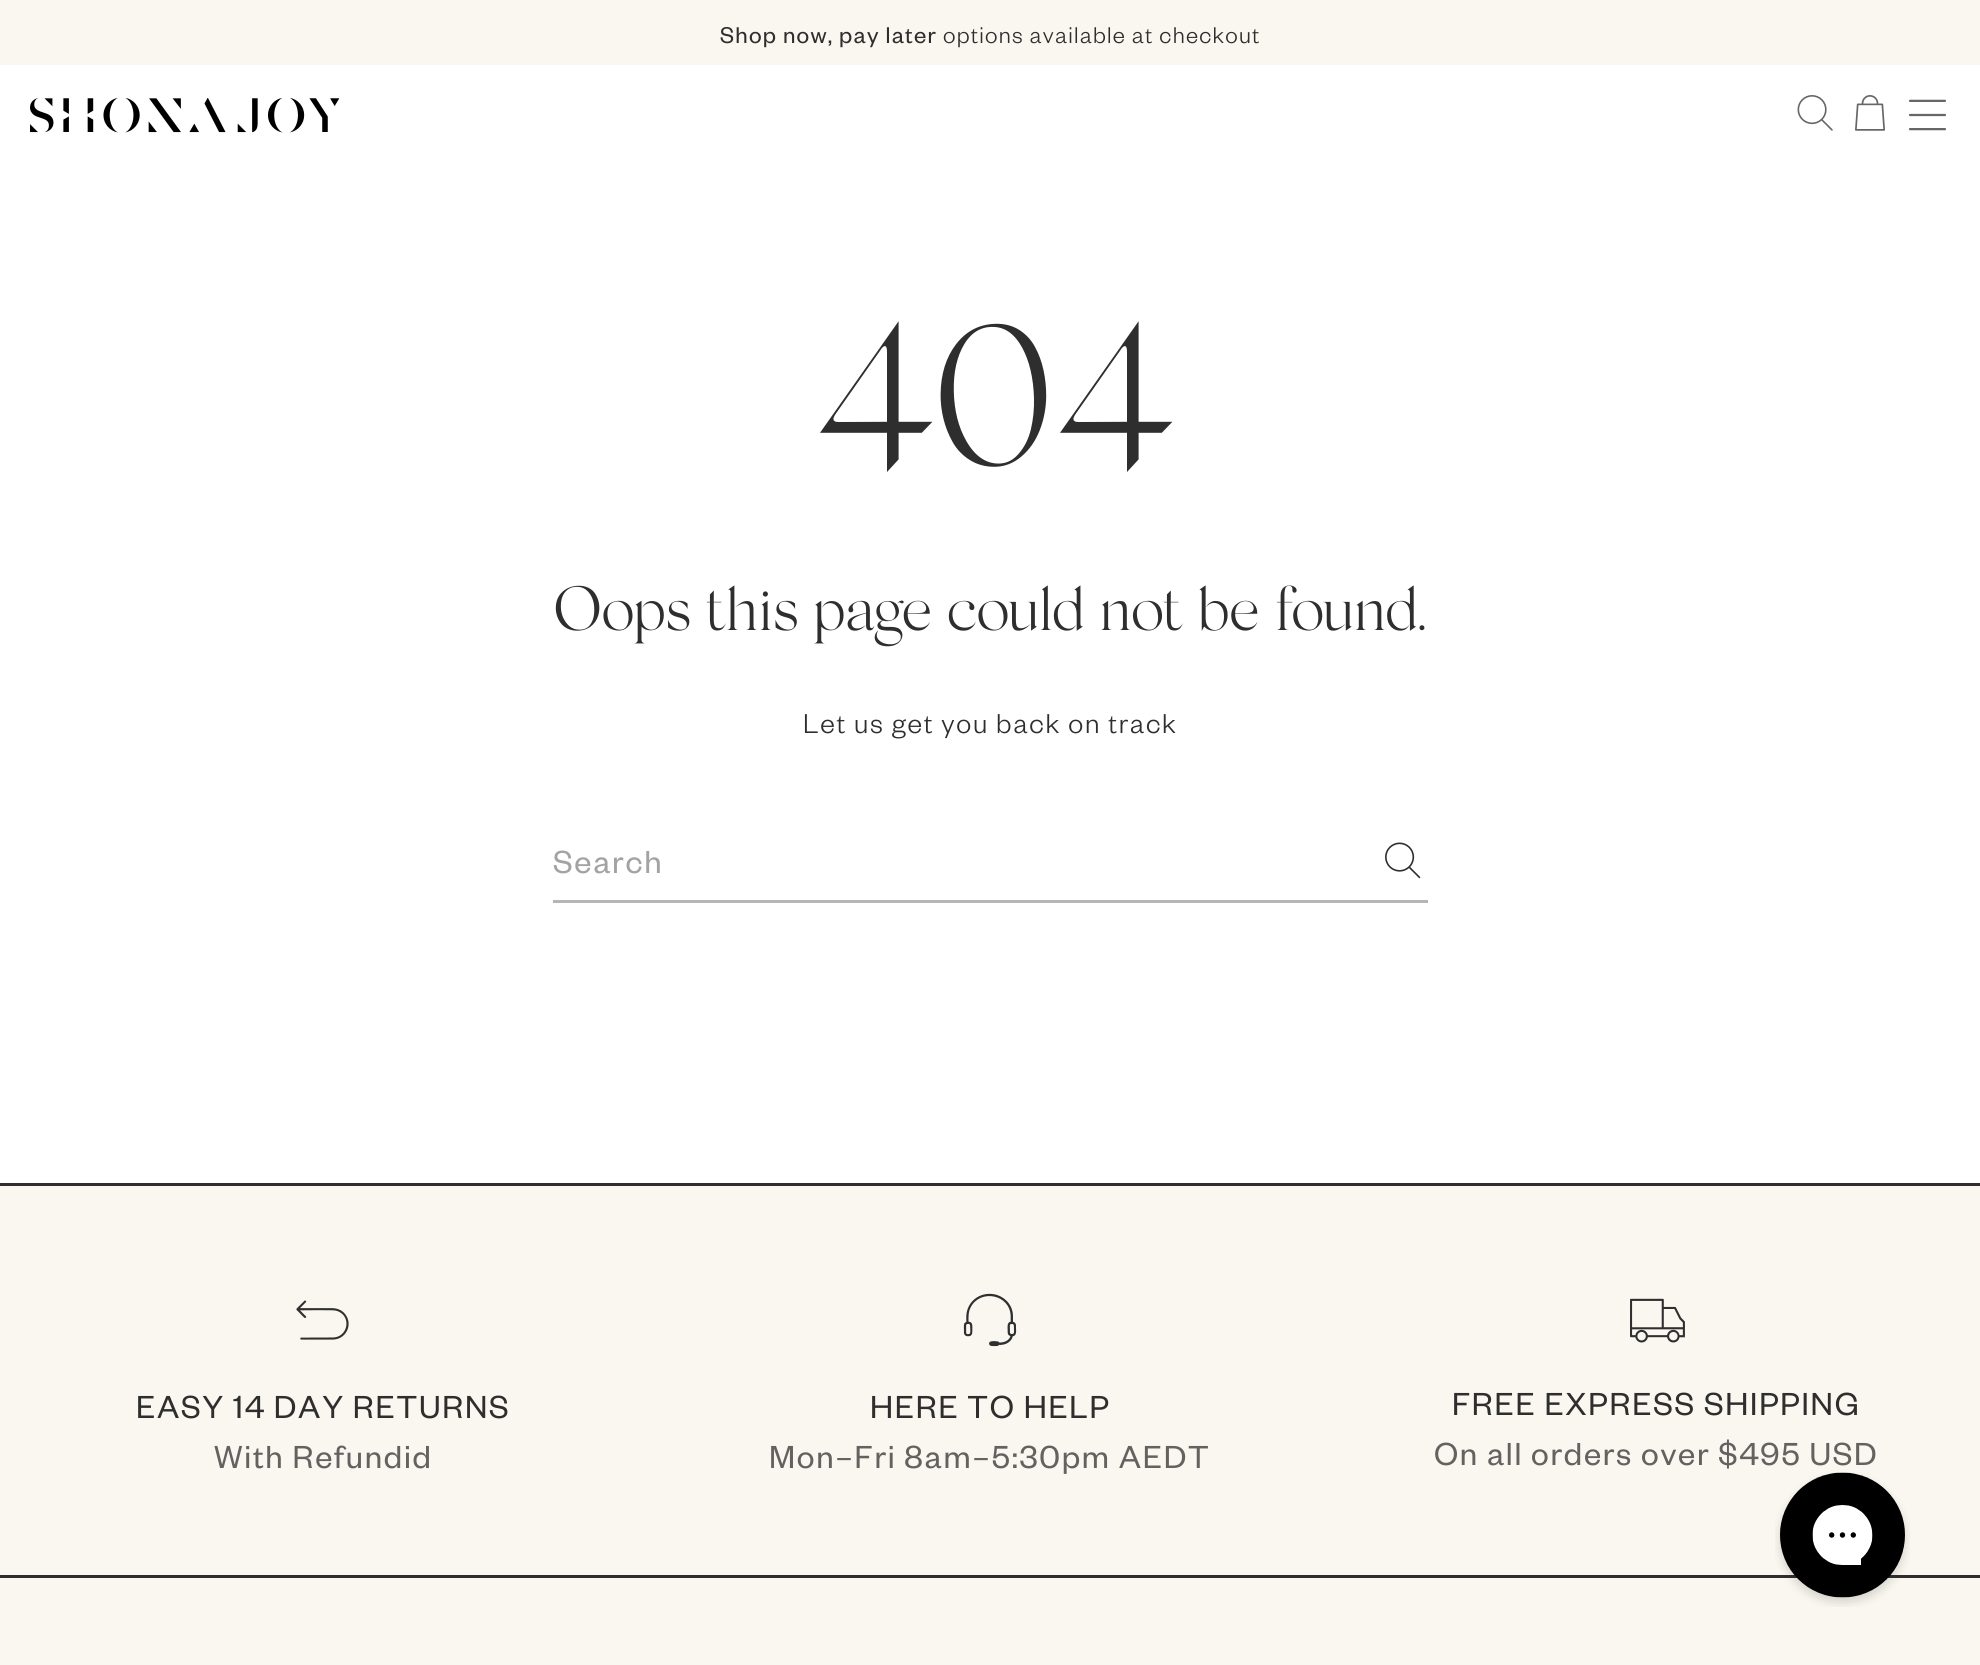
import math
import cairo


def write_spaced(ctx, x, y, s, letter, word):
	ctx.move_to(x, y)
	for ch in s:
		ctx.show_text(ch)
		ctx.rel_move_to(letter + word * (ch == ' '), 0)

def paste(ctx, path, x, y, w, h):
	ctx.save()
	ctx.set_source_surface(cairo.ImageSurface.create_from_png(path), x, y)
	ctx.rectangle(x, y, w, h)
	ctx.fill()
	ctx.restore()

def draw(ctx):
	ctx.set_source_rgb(1, 1, 1)
	ctx.paint()
	ctx.set_source_rgb(0.973, 0.965, 0.937)
	ctx.rectangle(0, 0, 1980, 65)
	ctx.fill()
	ctx.select_font_face('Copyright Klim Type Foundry')
	ctx.set_font_size(25)
	ctx.set_source_rgb(0.184, 0.18, 0.18)
	write_spaced(ctx, 720, 43, 'Shop now, pay later', 1.25, 0)
	ctx.select_font_face('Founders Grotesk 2 Light')
	write_spaced(ctx, 943, 43, 'options available at checkout', 1.25, 0)
	paste(ctx, 'media/1.png', 30, 98, 310, 35)
	paste(ctx, 'media/2.png', 1797, 95, 36, 36)
	paste(ctx, 'media/3.png', 1855, 95, 30, 36)
	paste(ctx, 'media/4.png', 1909, 99, 37, 32)
	ctx.select_font_face('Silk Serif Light')
	ctx.set_font_size(200)
	write_spaced(ctx, 813, 465, '404', -6, 0)
	ctx.set_font_size(62.5)
	write_spaced(ctx, 553, 630, 'Oops this page could not be found.', -1.9, 0)
	ctx.select_font_face('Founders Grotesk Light')
	ctx.set_font_size(30)
	write_spaced(ctx, 803, 733, 'Let us get you back on track', 1.75, 0)
	ctx.set_source_rgb(0.714, 0.714, 0.714)
	ctx.rectangle(553, 900, 875, 3)
	ctx.fill()
	ctx.select_font_face('Founders Grotesk')
	ctx.set_font_size(35)
	ctx.set_source_rgb(0.639, 0.639, 0.639)
	write_spaced(ctx, 553, 873, 'Search', 1.75, 0)
	paste(ctx, 'media/5.png', 1385, 842, 36, 37)
	ctx.set_source_rgb(0.973, 0.965, 0.937)
	ctx.rectangle(0, 1186, 1980, 389)
	ctx.fill()
	ctx.set_source_rgb(0.184, 0.18, 0.18)
	ctx.rectangle(0, 1183, 1980, 3)
	ctx.fill()
	paste(ctx, 'media/6.png', 296, 1300, 53, 40)
	write_spaced(ctx, 136, 1418, 'EASY 14 DAY RETURNS', 1.75, 0)
	ctx.set_source_rgb(0.388, 0.384, 0.376)
	write_spaced(ctx, 214, 1468, 'With Refundid', 1.75, 0)
	paste(ctx, 'media/7.png', 963, 1293, 54, 54)
	ctx.set_source_rgb(0.184, 0.18, 0.18)
	write_spaced(ctx, 870, 1418, 'HERE TO HELP', 1.75, 0)
	ctx.set_source_rgb(0.388, 0.384, 0.376)
	write_spaced(ctx, 769, 1468, 'Mon–Fri 8am–5:30pm AEDT', 1.75, 0)
	paste(ctx, 'media/8.png', 1630, 1298, 55, 45)
	ctx.set_source_rgb(0.184, 0.18, 0.18)
	write_spaced(ctx, 1452, 1415, 'FREE EXPRESS SHIPPING', 1.75, 0)
	ctx.set_source_rgb(0.388, 0.384, 0.376)
	write_spaced(ctx, 1434, 1465, 'On all orders over $495 USD', 1.75, 0)
	ctx.set_source_rgb(0.973, 0.965, 0.937)
	ctx.rectangle(0, 1578, 1980, 87)
	ctx.fill()
	ctx.set_source_rgb(0.184, 0.18, 0.18)
	ctx.rectangle(0, 1575, 1980, 3)
	ctx.fill()
	paste(ctx, 'media/9.png', 1775, 1472, 135, 135)


surface = cairo.ImageSurface(cairo.FORMAT_RGB24, 1980, 1665)
ctx = cairo.Context(surface)
options = cairo.FontOptions()
options.set_hint_metrics(cairo.HINT_METRICS_OFF)
options.set_hint_style(cairo.HINT_STYLE_NONE)
ctx.set_font_options(options)
ctx.set_miter_limit(4)
draw(ctx)
surface.write_to_png('image.png')
